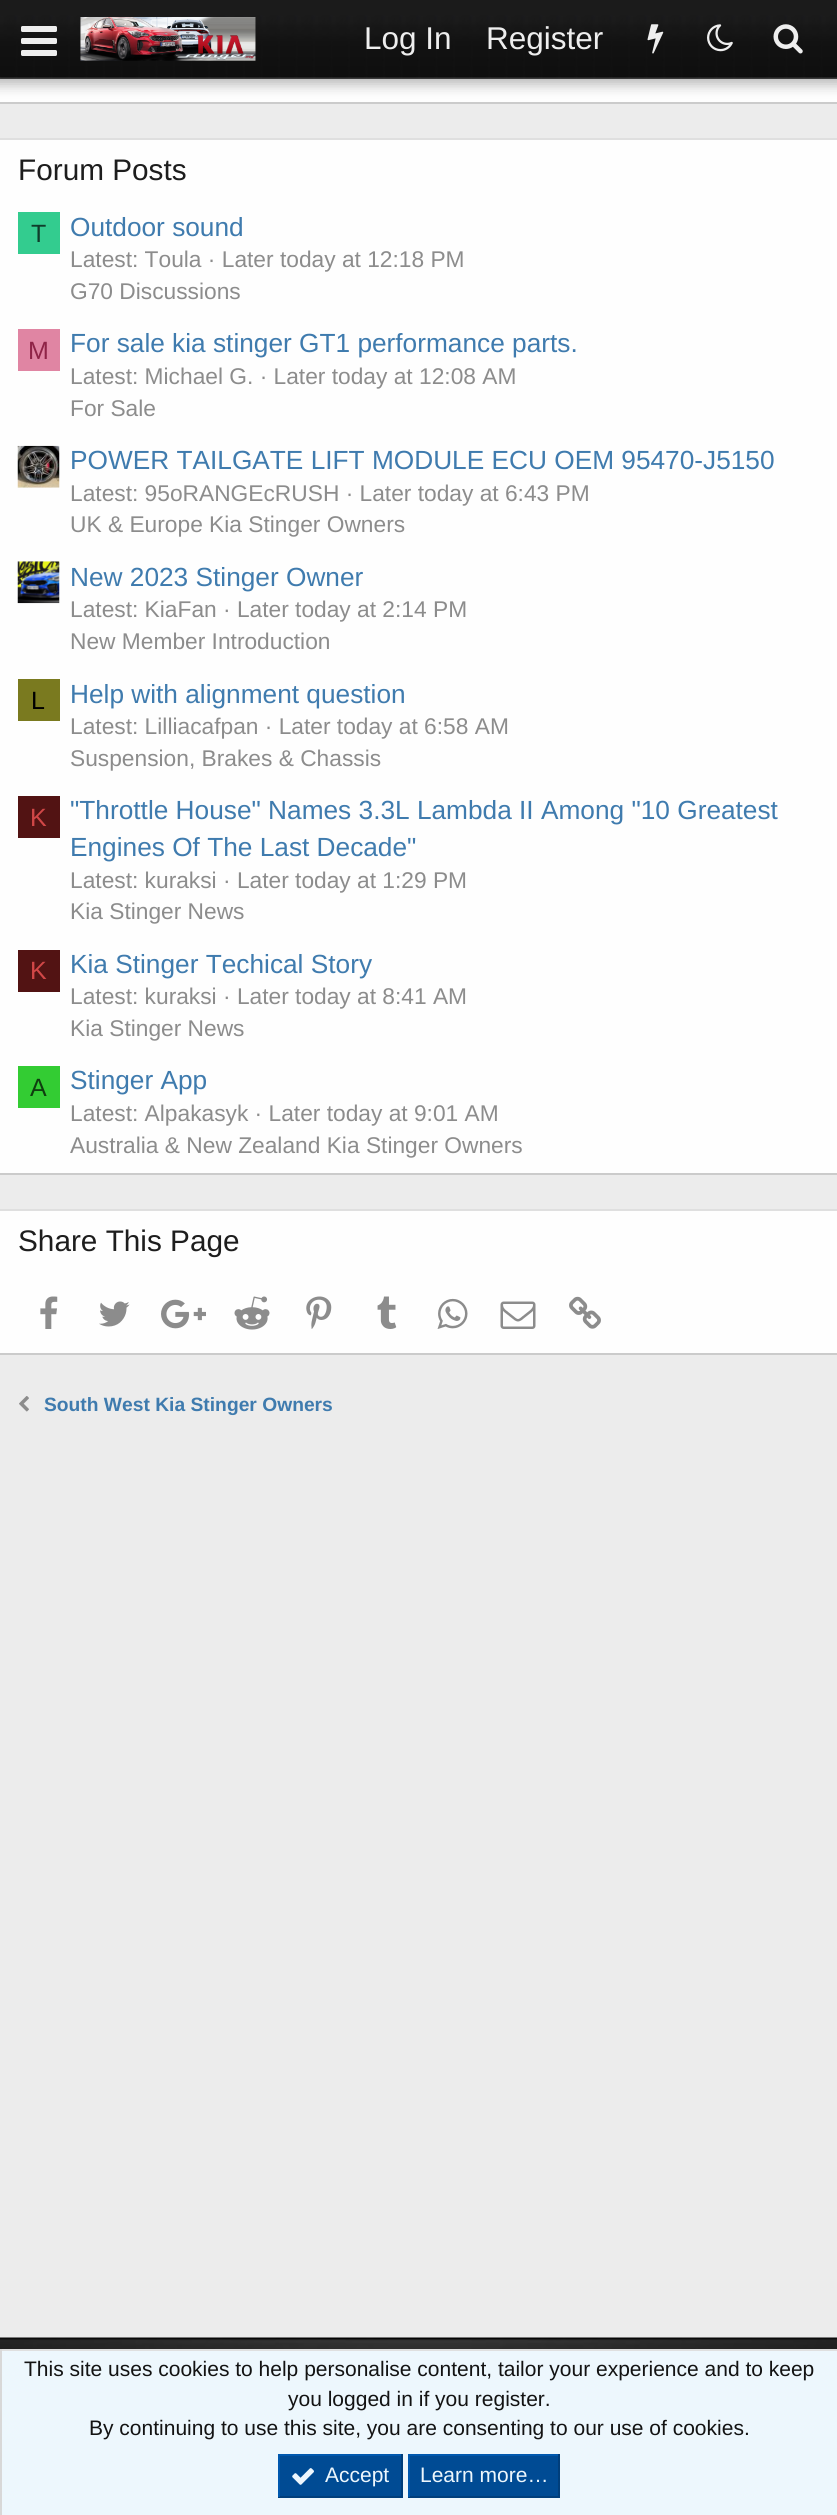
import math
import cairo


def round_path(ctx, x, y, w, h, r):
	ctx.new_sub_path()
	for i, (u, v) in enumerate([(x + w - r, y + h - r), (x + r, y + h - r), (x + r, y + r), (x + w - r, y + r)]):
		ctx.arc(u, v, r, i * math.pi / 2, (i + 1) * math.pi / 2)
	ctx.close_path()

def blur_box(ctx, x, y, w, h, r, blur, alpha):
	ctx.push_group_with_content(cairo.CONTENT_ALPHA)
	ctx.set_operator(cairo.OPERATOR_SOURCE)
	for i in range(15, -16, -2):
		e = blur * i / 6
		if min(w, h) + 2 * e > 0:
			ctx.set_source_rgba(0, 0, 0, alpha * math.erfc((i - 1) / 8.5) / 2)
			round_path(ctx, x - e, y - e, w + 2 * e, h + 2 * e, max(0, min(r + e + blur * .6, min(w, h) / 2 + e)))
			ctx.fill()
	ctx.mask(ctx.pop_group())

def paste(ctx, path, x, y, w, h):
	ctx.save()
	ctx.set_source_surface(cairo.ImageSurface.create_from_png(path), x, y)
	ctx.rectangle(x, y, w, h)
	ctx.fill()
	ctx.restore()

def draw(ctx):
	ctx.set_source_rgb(0.925, 0.925, 0.925)
	ctx.paint()
	ctx.set_source_rgb(0.996, 0.996, 0.996)
	ctx.rectangle(0, 77, 837, 25)
	ctx.fill()
	ctx.set_source_rgb(0.796, 0.796, 0.796)
	ctx.rectangle(0, 102, 837, 2)
	ctx.fill()
	ctx.set_source_rgb(0, 0, 0)
	blur_box(ctx, -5, -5, 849, 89, 0, 7, 0.3)
	paste(ctx, 'media/1.png', 0, 0, 837, 79)
	paste(ctx, 'media/2.png', 21, 26, 36, 30)
	paste(ctx, 'media/3.png', 80, 17, 176, 44)
	ctx.select_font_face('Liberation Sans')
	ctx.set_font_size(31.5)
	ctx.set_source_rgb(0.933, 0.933, 0.933)
	ctx.move_to(364, 49)
	ctx.show_text('Log In')
	ctx.move_to(486, 49)
	ctx.show_text('Register')
	paste(ctx, 'media/4.png', 647, 24, 17, 30)
	paste(ctx, 'media/5.png', 707, 24, 26, 28)
	paste(ctx, 'media/6.png', 773, 24, 30, 30)
	ctx.set_source_rgb(0.996, 0.996, 0.996)
	ctx.rectangle(0, 140, 837, 1033)
	ctx.fill()
	ctx.set_source_rgb(0.875, 0.875, 0.875)
	ctx.rectangle(0, 138, 837, 2)
	ctx.fill()
	ctx.set_source_rgb(0.796, 0.796, 0.796)
	ctx.rectangle(0, 1173, 837, 2)
	ctx.fill()
	ctx.set_font_size(29.75)
	ctx.set_source_rgb(0.114, 0.114, 0.114)
	ctx.move_to(18, 180)
	ctx.show_text('Forum Posts')
	ctx.set_source_rgb(0.2, 0.8, 0.561)
	ctx.rectangle(18, 212, 42, 42)
	ctx.fill()
	ctx.set_font_size(25)
	ctx.set_source_rgb(0.059, 0.239, 0.169)
	ctx.move_to(31, 242)
	ctx.show_text('T')
	ctx.set_font_size(26.25)
	ctx.set_source_rgb(0.247, 0.482, 0.682)
	ctx.move_to(70, 236)
	ctx.show_text('Outdoor sound')
	ctx.set_font_size(22.75)
	ctx.set_source_rgb(0.549, 0.549, 0.549)
	ctx.move_to(70, 267)
	ctx.show_text('Latest: Toula · Later today at 12:18 PM')
	ctx.move_to(70, 299)
	ctx.show_text('G70 Discussions')
	ctx.set_source_rgb(0.878, 0.522, 0.639)
	ctx.rectangle(18, 329, 42, 42)
	ctx.fill()
	ctx.set_font_size(25)
	ctx.set_source_rgb(0.561, 0.141, 0.278)
	ctx.move_to(28, 359)
	ctx.show_text('M')
	ctx.set_font_size(26.25)
	ctx.set_source_rgb(0.247, 0.482, 0.682)
	ctx.move_to(70, 352)
	ctx.show_text('For sale kia stinger GT1 performance parts.')
	ctx.set_font_size(22.75)
	ctx.set_source_rgb(0.549, 0.549, 0.549)
	ctx.move_to(70, 384)
	ctx.show_text('Latest: Michael G. · Later today at 12:08 AM')
	ctx.move_to(70, 416)
	ctx.show_text('For Sale')
	paste(ctx, 'media/7.png', 17, 445, 43, 43)
	ctx.set_font_size(26.25)
	ctx.set_source_rgb(0.247, 0.482, 0.682)
	ctx.move_to(70, 469)
	ctx.show_text('POWER TAILGATE LIFT MODULE ECU OEM 95470-J5150')
	ctx.set_font_size(22.75)
	ctx.set_source_rgb(0.549, 0.549, 0.549)
	ctx.move_to(70, 501)
	ctx.show_text('Latest: 95oRANGEcRUSH · Later today at 6:43 PM')
	ctx.move_to(70, 532)
	ctx.show_text('UK & Europe Kia Stinger Owners')
	paste(ctx, 'media/8.png', 17, 561, 43, 43)
	ctx.set_font_size(26.25)
	ctx.set_source_rgb(0.247, 0.482, 0.682)
	ctx.move_to(70, 586)
	ctx.show_text('New 2023 Stinger Owner')
	ctx.set_font_size(22.75)
	ctx.set_source_rgb(0.549, 0.549, 0.549)
	ctx.move_to(70, 617)
	ctx.show_text('Latest: KiaFan · Later today at 2:14 PM')
	ctx.move_to(70, 649)
	ctx.show_text('New Member Introduction')
	ctx.set_source_rgb(0.478, 0.478, 0.122)
	ctx.rectangle(18, 679, 42, 42)
	ctx.fill()
	ctx.set_font_size(25)
	ctx.set_source_rgb(0, 0, 0)
	ctx.move_to(31, 709)
	ctx.show_text('L')
	ctx.set_font_size(26.25)
	ctx.set_source_rgb(0.247, 0.482, 0.682)
	ctx.move_to(70, 703)
	ctx.show_text('Help with alignment question')
	ctx.set_font_size(22.75)
	ctx.set_source_rgb(0.549, 0.549, 0.549)
	ctx.move_to(70, 734)
	ctx.show_text('Latest: Lilliacafpan · Later today at 6:58 AM')
	ctx.move_to(70, 766)
	ctx.show_text('Suspension, Brakes & Chassis')
	ctx.set_source_rgb(0.322, 0.078, 0.078)
	ctx.rectangle(18, 796, 42, 42)
	ctx.fill()
	ctx.set_font_size(25)
	ctx.set_source_rgb(0.82, 0.278, 0.278)
	ctx.move_to(30, 826)
	ctx.show_text('K')
	ctx.set_font_size(26.25)
	ctx.set_source_rgb(0.247, 0.482, 0.682)
	ctx.move_to(70, 819)
	ctx.show_text('"Throttle House" Names 3.3L Lambda II Among "10 Greatest')
	ctx.move_to(70, 856)
	ctx.show_text('Engines Of The Last Decade"')
	ctx.set_font_size(22.75)
	ctx.set_source_rgb(0.549, 0.549, 0.549)
	ctx.move_to(70, 888)
	ctx.show_text('Latest: kuraksi · Later today at 1:29 PM')
	ctx.move_to(70, 919)
	ctx.show_text('Kia Stinger News')
	ctx.set_source_rgb(0.322, 0.078, 0.078)
	ctx.rectangle(18, 950, 42, 42)
	ctx.fill()
	ctx.set_font_size(25)
	ctx.set_source_rgb(0.82, 0.278, 0.278)
	ctx.move_to(30, 979)
	ctx.show_text('K')
	ctx.set_font_size(26.25)
	ctx.set_source_rgb(0.247, 0.482, 0.682)
	ctx.move_to(70, 973)
	ctx.show_text('Kia Stinger Techical Story')
	ctx.set_font_size(22.75)
	ctx.set_source_rgb(0.549, 0.549, 0.549)
	ctx.move_to(70, 1004)
	ctx.show_text('Latest: kuraksi · Later today at 8:41 AM')
	ctx.move_to(70, 1036)
	ctx.show_text('Kia Stinger News')
	ctx.set_source_rgb(0.2, 0.8, 0.2)
	ctx.rectangle(18, 1066, 42, 42)
	ctx.fill()
	ctx.set_font_size(25)
	ctx.set_source_rgb(0.059, 0.239, 0.059)
	ctx.move_to(30, 1096)
	ctx.show_text('A')
	ctx.set_font_size(26.25)
	ctx.set_source_rgb(0.247, 0.482, 0.682)
	ctx.move_to(70, 1089)
	ctx.show_text('Stinger App')
	ctx.set_font_size(22.75)
	ctx.set_source_rgb(0.549, 0.549, 0.549)
	ctx.move_to(70, 1121)
	ctx.show_text('Latest: Alpakasyk · Later today at 9:01 AM')
	ctx.move_to(70, 1153)
	ctx.show_text('Australia & New Zealand Kia Stinger Owners')
	ctx.set_source_rgb(0.996, 0.996, 0.996)
	ctx.rectangle(0, 1211, 837, 142)
	ctx.fill()
	ctx.set_source_rgb(0.875, 0.875, 0.875)
	ctx.rectangle(0, 1209, 837, 2)
	ctx.fill()
	ctx.set_source_rgb(0.796, 0.796, 0.796)
	ctx.rectangle(0, 1353, 837, 2)
	ctx.fill()
	ctx.set_font_size(29.75)
	ctx.set_source_rgb(0.114, 0.114, 0.114)
	ctx.move_to(18, 1251)
	ctx.show_text('Share This Page')
	paste(ctx, 'media/9.png', 40, 1296, 18, 33)
	paste(ctx, 'media/10.png', 99, 1301, 31, 26)
	paste(ctx, 'media/11.png', 161, 1299, 45, 30)
	paste(ctx, 'media/12.png', 234, 1296, 36, 34)
	paste(ctx, 'media/13.png', 306, 1296, 26, 33)
	paste(ctx, 'media/14.png', 377, 1296, 20, 33)
	paste(ctx, 'media/15.png', 437, 1298, 31, 31)
	paste(ctx, 'media/16.png', 500, 1301, 36, 28)
	paste(ctx, 'media/17.png', 569, 1296, 32, 33)
	paste(ctx, 'media/18.png', 19, 1396, 10, 16)
	ctx.select_font_face('Liberation Sans', cairo.FONT_SLANT_NORMAL, cairo.FONT_WEIGHT_BOLD)
	ctx.set_font_size(19.25)
	ctx.set_source_rgb(0.247, 0.482, 0.682)
	ctx.move_to(44, 1411)
	ctx.show_text('South West Kia Stinger Owners')
	paste(ctx, 'media/19.png', 0, 2337, 837, 12)
	ctx.set_source_rgb(0.929, 0.965, 0.992)
	ctx.rectangle(2, 2351, 835, 164)
	ctx.fill()
	ctx.set_source_rgb(0.875, 0.875, 0.875)
	ctx.rectangle(0, 2349, 837, 2)
	ctx.fill()
	ctx.set_source_rgb(0.847, 0.847, 0.847)
	ctx.rectangle(0, 2349, 2, 166)
	ctx.fill()
	ctx.select_font_face('Liberation Sans')
	ctx.set_font_size(21)
	ctx.set_source_rgb(0.078, 0.078, 0.078)
	for x, y, s in [
		(24, 2376, 'This site uses cookies to help personalise content, tailor your experience and to keep'),
		(288, 2406, 'you logged in if you register.'),
		(89, 2435, 'By continuing to use this site, you are consenting to our use of cookies.'),
	]:
		ctx.move_to(x, y)
		ctx.show_text(s)
	ctx.set_source_rgb(0, 0.294, 0.58)
	ctx.rectangle(280, 2456, 121, 40)
	ctx.fill()
	ctx.set_source_rgb(0, 0.345, 0.682)
	ctx.rectangle(278, 2454, 125, 2)
	ctx.fill()
	ctx.set_source_rgb(0, 0.243, 0.482)
	ctx.rectangle(401, 2454, 2, 43)
	ctx.rectangle(278, 2496, 125, 2)
	ctx.fill()
	ctx.set_source_rgb(0, 0.345, 0.682)
	ctx.rectangle(278, 2454, 2, 43)
	ctx.fill()
	paste(ctx, 'media/20.png', 292, 2468, 22, 17)
	ctx.set_source_rgb(0.929, 0.965, 0.992)
	ctx.move_to(325, 2482)
	ctx.show_text('Accept')
	ctx.set_source_rgb(0, 0.294, 0.58)
	ctx.rectangle(410, 2456, 148, 40)
	ctx.fill()
	ctx.set_source_rgb(0, 0.345, 0.682)
	ctx.rectangle(408, 2454, 152, 2)
	ctx.fill()
	ctx.set_source_rgb(0, 0.243, 0.482)
	ctx.rectangle(558, 2454, 2, 43)
	ctx.rectangle(408, 2496, 152, 2)
	ctx.fill()
	ctx.set_source_rgb(0, 0.345, 0.682)
	ctx.rectangle(408, 2454, 2, 43)
	ctx.fill()
	ctx.set_source_rgb(0.929, 0.965, 0.992)
	ctx.move_to(420, 2482)
	ctx.show_text('Learn more…')


surface = cairo.ImageSurface(cairo.FORMAT_RGB24, 837, 2515)
ctx = cairo.Context(surface)
options = cairo.FontOptions()
options.set_hint_metrics(cairo.HINT_METRICS_OFF)
options.set_hint_style(cairo.HINT_STYLE_NONE)
ctx.set_font_options(options)
ctx.set_miter_limit(4)
draw(ctx)
surface.write_to_png('image.png')
